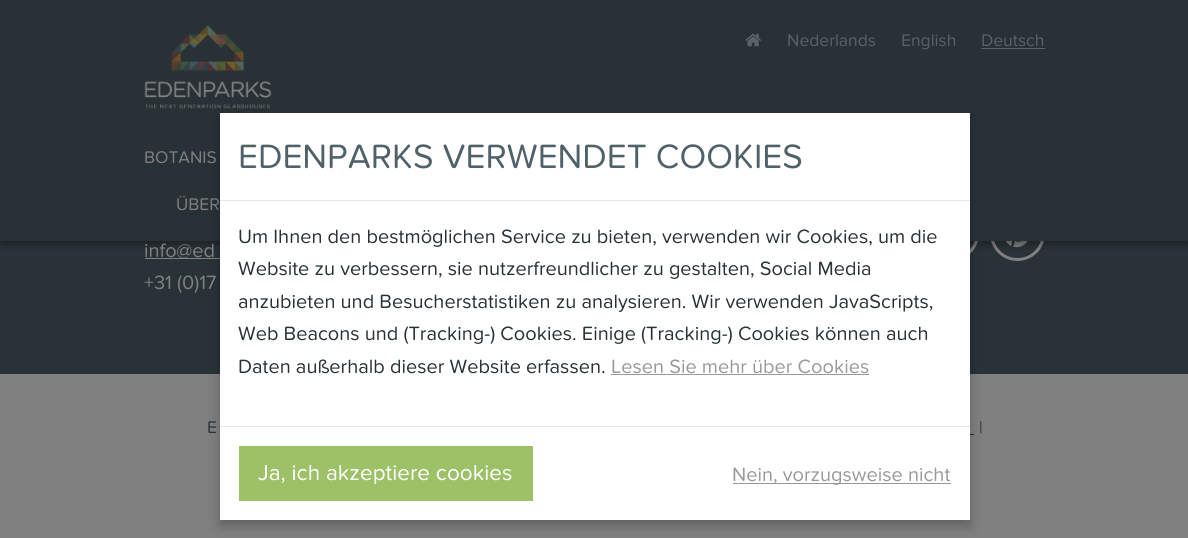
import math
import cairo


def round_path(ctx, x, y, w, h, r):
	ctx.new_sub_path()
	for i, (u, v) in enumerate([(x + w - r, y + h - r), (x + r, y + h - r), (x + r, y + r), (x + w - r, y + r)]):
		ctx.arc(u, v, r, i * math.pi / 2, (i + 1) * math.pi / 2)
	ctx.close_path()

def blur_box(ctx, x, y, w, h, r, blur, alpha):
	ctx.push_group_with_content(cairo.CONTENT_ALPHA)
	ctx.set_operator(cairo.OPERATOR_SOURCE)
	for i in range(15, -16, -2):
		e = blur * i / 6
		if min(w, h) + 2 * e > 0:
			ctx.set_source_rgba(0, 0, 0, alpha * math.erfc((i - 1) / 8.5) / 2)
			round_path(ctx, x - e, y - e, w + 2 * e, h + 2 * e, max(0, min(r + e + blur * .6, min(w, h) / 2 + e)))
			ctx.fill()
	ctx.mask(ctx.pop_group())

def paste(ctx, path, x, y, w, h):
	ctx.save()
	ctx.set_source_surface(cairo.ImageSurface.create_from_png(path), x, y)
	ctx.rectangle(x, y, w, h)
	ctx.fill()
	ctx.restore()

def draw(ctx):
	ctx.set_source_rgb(0.502, 0.502, 0.502)
	ctx.paint()
	ctx.set_source_rgb(0.157, 0.196, 0.216)
	ctx.rectangle(0, 241, 1188, 133)
	ctx.fill()
	ctx.arc(951.5, 233.5, 26, 0, 2 * math.pi)
	ctx.set_source_rgb(0.502, 0.502, 0.502)
	ctx.set_line_width(3)
	ctx.stroke()
	ctx.arc(1017.5, 233.5, 26, 0, 2 * math.pi)
	ctx.stroke()
	paste(ctx, 'media/3.png', 1005, 241, 23, 7)
	ctx.set_source_rgb(0, 0, 0)
	blur_box(ctx, 0, 4, 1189, 241, 0, 3, 0.3)
	ctx.set_source_rgb(0.157, 0.192, 0.208)
	ctx.rectangle(0, 0, 1188, 241)
	ctx.fill()
	paste(ctx, 'media/1.png', 144, 25, 128, 84)
	paste(ctx, 'media/2.png', 745, 33, 16, 14)
	ctx.select_font_face('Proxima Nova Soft')
	ctx.set_font_size(17.5)
	ctx.set_source_rgb(0.345, 0.384, 0.408)
	for x, y, s in [
		(787, 46, 'Nederlands'),
		(901, 46, 'English'),
		(981, 46, 'Deutsch'),
	]:
		ctx.move_to(x, y)
		ctx.show_text(s)
	ctx.rectangle(981, 48, 64, 1)
	ctx.fill()
	ctx.set_source_rgb(0.502, 0.502, 0.502)
	ctx.move_to(144, 163)
	ctx.show_text('BOTANIS')
	ctx.move_to(176, 210)
	ctx.show_text('ÜBER')
	ctx.rectangle(145, 258, 75, 1)
	ctx.fill()
	ctx.set_source_rgb(0.157, 0.196, 0.216)
	ctx.rectangle(970, 434, 4, 1)
	ctx.fill()
	ctx.set_source_rgb(0, 0, 0)
	blur_box(ctx, 220, 119, 750, 407, 0, 6, 0.25)
	ctx.set_source_rgb(1, 1, 1)
	ctx.rectangle(220, 113, 750, 407)
	ctx.fill()
	ctx.set_source_rgb(0.898, 0.898, 0.898)
	ctx.rectangle(220, 200, 750, 1)
	ctx.fill()
	ctx.set_font_size(35)
	ctx.set_source_rgb(0.31, 0.384, 0.412)
	ctx.move_to(238, 168)
	ctx.show_text('EDENPARKS VERWENDET COOKIES')
	ctx.set_font_size(20)
	ctx.set_source_rgb(0.157, 0.196, 0.216)
	for x, y, s in [
		(238, 243, 'Um Ihnen den bestmöglichen Service zu bieten, verwenden wir Cookies, um die'),
		(238, 275, 'Website zu verbessern, sie nutzerfreundlicher zu gestalten, Social Media'),
		(238, 308, 'anzubieten und Besucherstatistiken zu analysieren. Wir verwenden JavaScripts,'),
		(238, 340, 'Web Beacons und (Tracking-) Cookies. Einige (Tracking-) Cookies können auch'),
		(238, 373, 'Daten außerhalb dieser Website erfassen.'),
	]:
		ctx.move_to(x, y)
		ctx.show_text(s)
	ctx.set_source_rgb(0.6, 0.6, 0.6)
	ctx.move_to(611, 373)
	ctx.show_text('Lesen Sie mehr über Cookies')
	ctx.rectangle(611, 374, 258, 1)
	ctx.fill()
	ctx.set_source_rgb(0.898, 0.898, 0.898)
	ctx.rectangle(220, 426, 750, 1)
	ctx.fill()
	ctx.set_source_rgb(0.612, 0.757, 0.404)
	ctx.rectangle(239, 446, 294, 55)
	ctx.fill()
	ctx.set_font_size(22.5)
	ctx.set_source_rgb(1, 1, 1)
	ctx.move_to(258, 480)
	ctx.show_text('Ja, ich akzeptiere cookies')
	ctx.set_source_rgb(0.6, 0.6, 0.6)
	ctx.rectangle(733, 483, 218, 1)
	ctx.fill()
	ctx.set_font_size(20)
	ctx.move_to(732, 481)
	ctx.show_text('Nein, vorzugsweise nicht')
	ctx.set_source_rgb(0.502, 0.502, 0.502)
	ctx.move_to(144, 257)
	ctx.show_text('info@ed')
	ctx.move_to(144, 289)
	ctx.show_text('+31 (0)17')
	ctx.set_font_size(17.5)
	ctx.set_source_rgb(0.157, 0.196, 0.216)
	ctx.move_to(207, 433)
	ctx.show_text('E')
	ctx.move_to(979, 433)
	ctx.show_text('|')


surface = cairo.ImageSurface(cairo.FORMAT_RGB24, 1188, 538)
ctx = cairo.Context(surface)
options = cairo.FontOptions()
options.set_hint_metrics(cairo.HINT_METRICS_OFF)
options.set_hint_style(cairo.HINT_STYLE_NONE)
ctx.set_font_options(options)
ctx.set_miter_limit(4)
draw(ctx)
surface.write_to_png('image.png')
